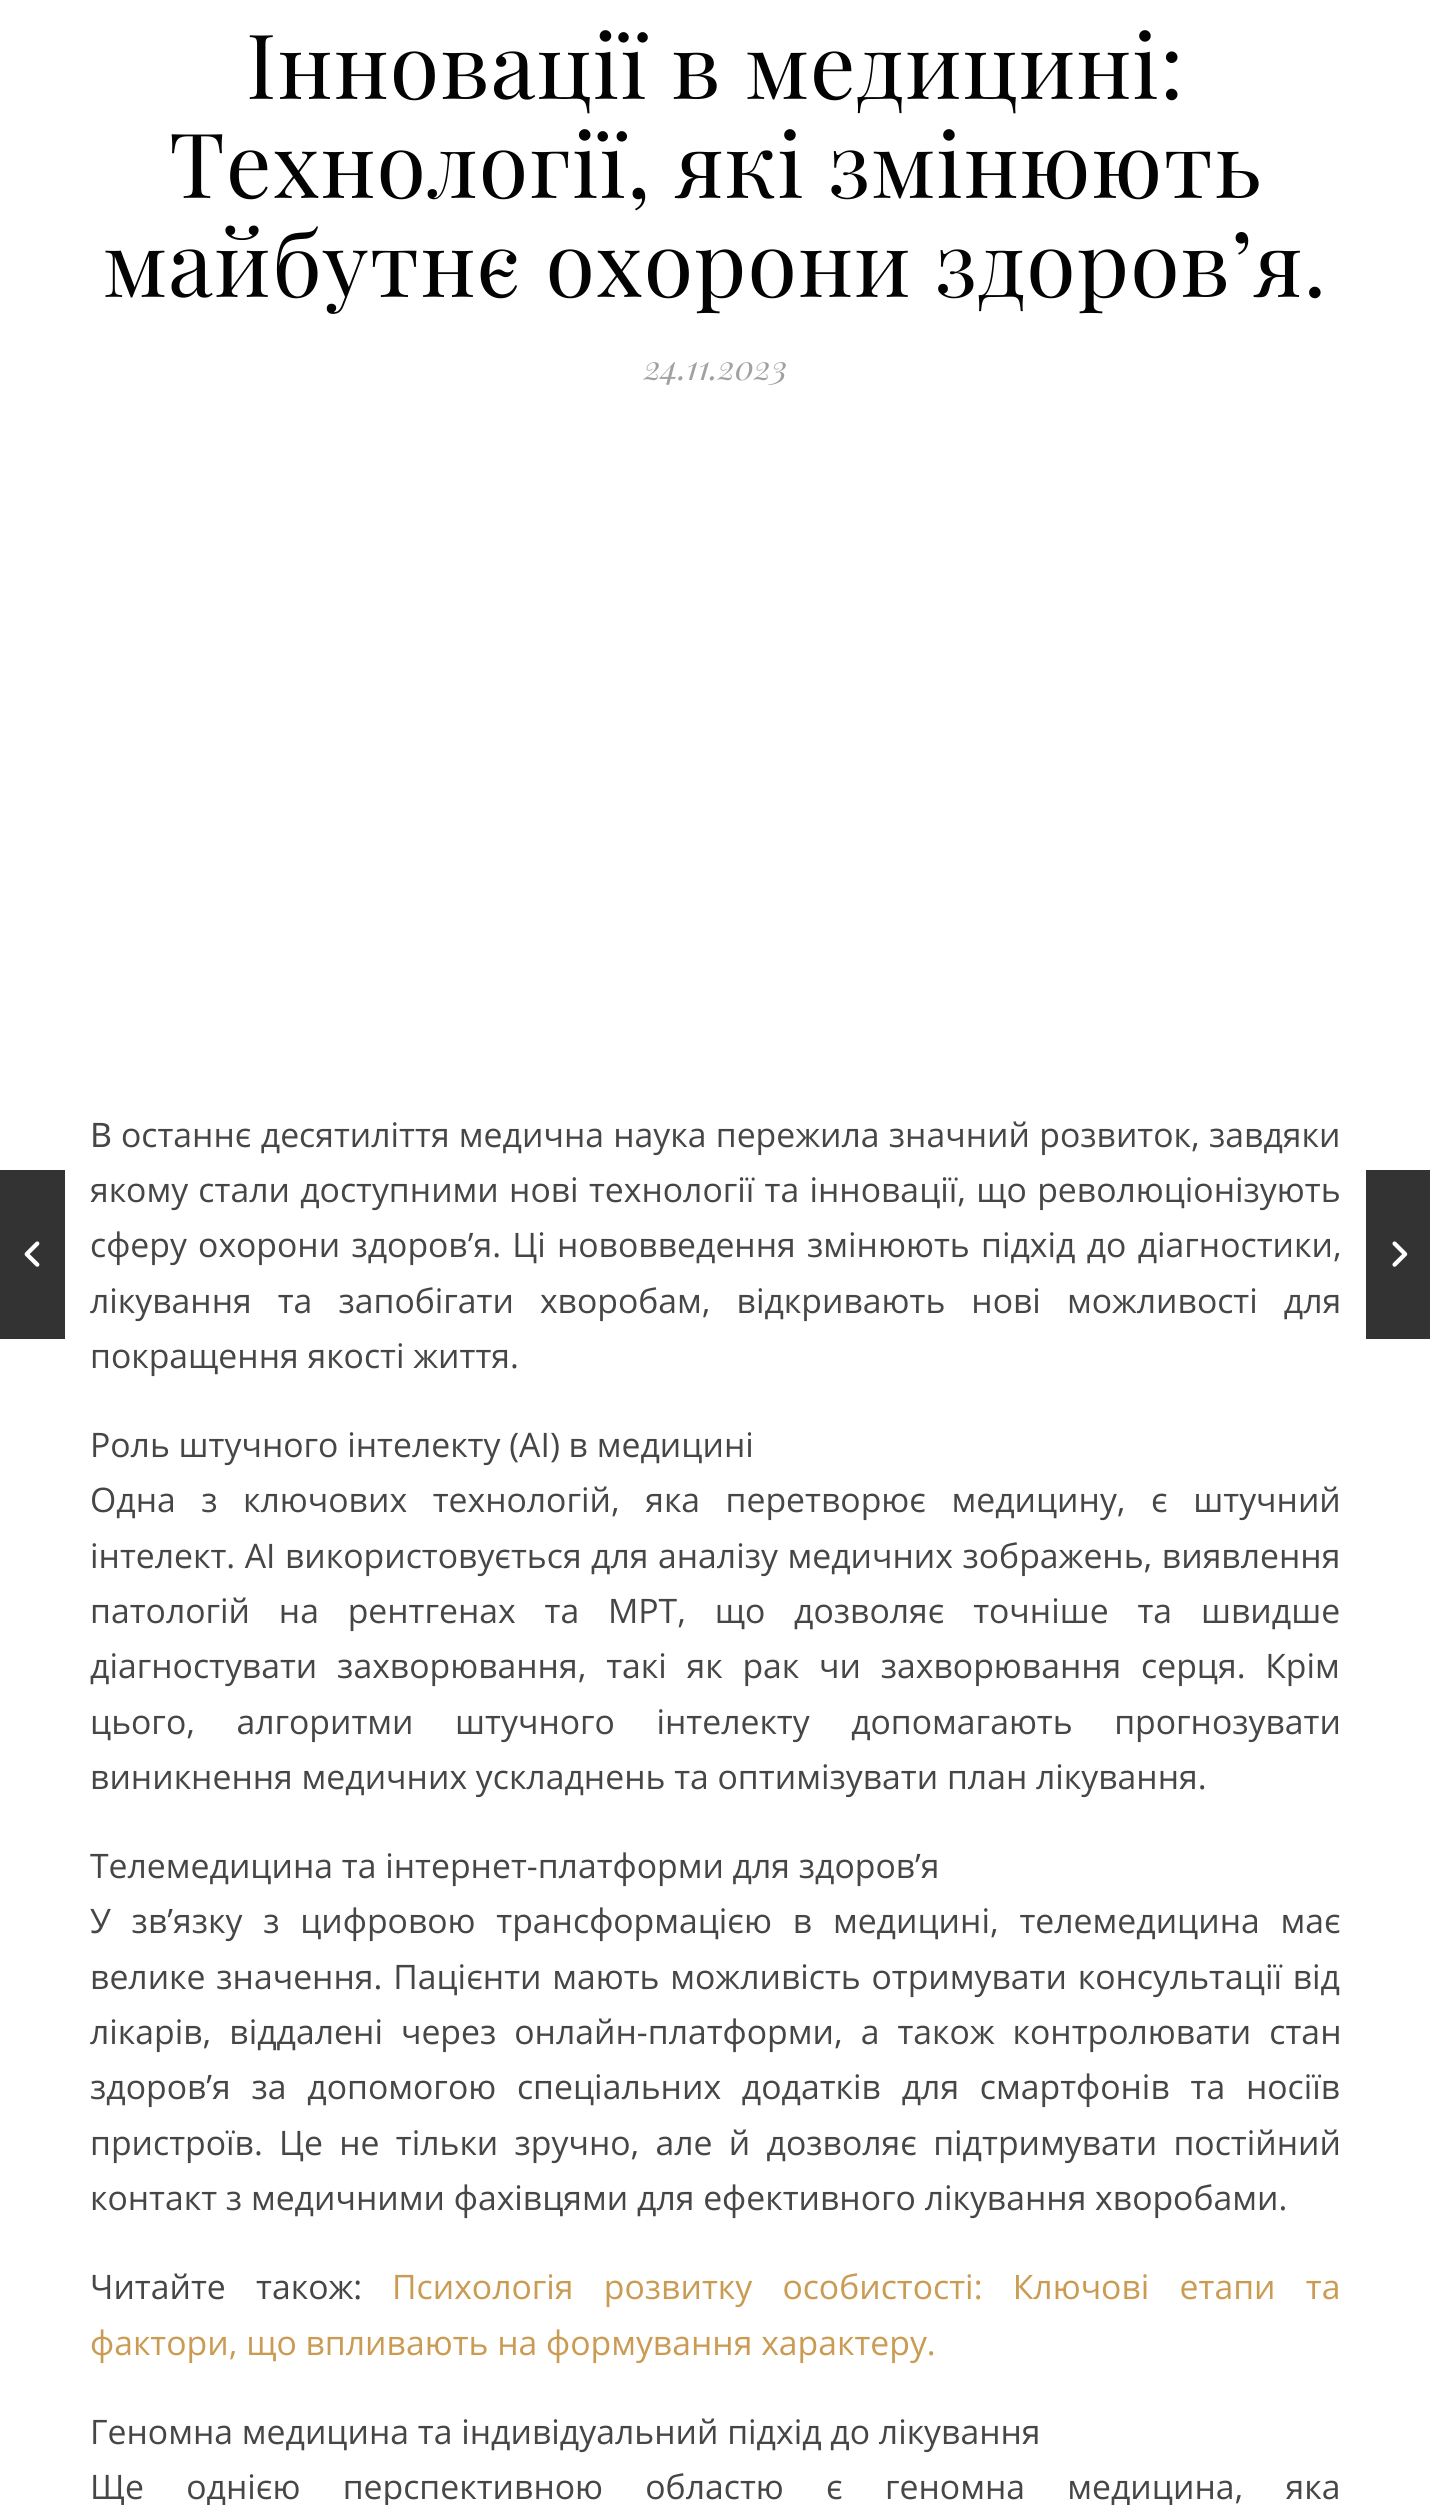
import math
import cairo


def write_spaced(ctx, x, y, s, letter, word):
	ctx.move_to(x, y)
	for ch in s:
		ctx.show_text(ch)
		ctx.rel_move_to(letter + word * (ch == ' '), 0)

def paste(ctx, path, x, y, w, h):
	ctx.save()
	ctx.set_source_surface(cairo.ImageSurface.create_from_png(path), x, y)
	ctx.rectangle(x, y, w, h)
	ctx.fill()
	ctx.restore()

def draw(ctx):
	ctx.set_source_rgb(1, 1, 1)
	ctx.paint()
	ctx.set_source_rgb(0.2, 0.2, 0.2)
	ctx.rectangle(0, 1170, 65, 169)
	ctx.fill()
	paste(ctx, 'media/1.png', 24, 1241, 16, 26)
	ctx.select_font_face('Playfair Display')
	ctx.set_font_size(90)
	ctx.set_source_rgb(0.012, 0.012, 0.012)
	for x, y, s in [
		(246, 99, 'Інновації в медицині:'),
		(169, 198, 'Технології, які змінюють'),
		(103, 297, 'майбутнє охорони здоров’я.'),
	]:
		write_spaced(ctx, x, y, s, 1.1, 0)
	ctx.select_font_face('Playfair Display', cairo.FONT_SLANT_ITALIC)
	ctx.set_font_size(33.75)
	ctx.set_source_rgb(0.631, 0.631, 0.631)
	ctx.move_to(644, 380)
	ctx.show_text('24.11.2023')
	ctx.select_font_face('Noto Sans')
	ctx.set_source_rgb(0.275, 0.275, 0.275)
	ctx.move_to(90, 1147)
	ctx.show_text('В')
	ctx.select_font_face('Open Sans')
	write_spaced(ctx, 121, 1147, 'останнє десятиліття медична наука пережила значний розвиток, завдяки', 0, 0.5)
	write_spaced(ctx, 90, 1202, 'якому стали доступними нові технології та інновації, що революціонізують', 0, 1.5)
	write_spaced(ctx, 90, 1257, 'сферу охорони здоров’я. Ці нововведення змінюють підхід до діагностики,', 0, 2.5)
	write_spaced(ctx, 90, 1313, 'лікування та запобігати хворобам, відкривають нові можливості для', 0, 17.25)
	ctx.move_to(90, 1368)
	ctx.show_text('покращення якості життя.')
	ctx.move_to(90, 1457)
	ctx.show_text('Роль штучного інтелекту (AI) в медицині')
	write_spaced(ctx, 90, 1512, 'Одна з ключових технологій, яка перетворює медицину, є штучний', 0, 16.75)
	write_spaced(ctx, 90, 1568, 'інтелект. AI використовується для аналізу медичних зображень, виявлення', 0, 0.75)
	write_spaced(ctx, 90, 1623, 'патологій на рентгенах та МРТ, що дозволяє точніше та швидше', 0, 20)
	write_spaced(ctx, 90, 1678, 'діагностувати захворювання, такі як рак чи захворювання серця. Крім', 0, 11)
	write_spaced(ctx, 90, 1734, 'цього, алгоритми штучного інтелекту допомагають прогнозувати', 0, 32.75)
	ctx.move_to(90, 1789)
	ctx.show_text('виникнення медичних ускладнень та оптимізувати план лікування.')
	ctx.move_to(90, 1878)
	ctx.show_text('Телемедицина та інтернет-платформи для здоров’я')
	write_spaced(ctx, 90, 1933, 'У зв’язку з цифровою трансформацією в медицині, телемедицина має', 0, 12)
	write_spaced(ctx, 90, 1989, 'велике значення. Пацієнти мають можливість отримувати консультації від', 0, 2)
	write_spaced(ctx, 90, 2044, 'лікарів, віддалені через онлайн-платформи, а також контролювати стан', 0, 9.25)
	write_spaced(ctx, 90, 2099, 'здоров’я за допомогою спеціальних додатків для смартфонів та носіїв', 0, 12)
	write_spaced(ctx, 90, 2155, 'пристроїв. Це не тільки зручно, але й дозволяє підтримувати постійний', 0, 7.5)
	ctx.move_to(90, 2210)
	ctx.show_text('контакт з медичними фахівцями для ефективного лікування хворобами.')
	write_spaced(ctx, 90, 2299, 'Читайте також:', 0, 21.5)
	ctx.set_source_rgb(0.792, 0.608, 0.322)
	write_spaced(ctx, 392, 2299, 'Психологія розвитку особистості: Ключові етапи та', 0, 21.5)
	ctx.move_to(90, 2355)
	ctx.show_text('фактори, що впливають на формування характеру.')
	ctx.set_source_rgb(0.275, 0.275, 0.275)
	ctx.move_to(90, 2444)
	ctx.show_text('Геномна медицина та індивідуальний підхід до лікування')
	write_spaced(ctx, 90, 2499, 'Ще однією перспективною областю є геномна медицина, яка', 0, 33.5)
	ctx.set_source_rgb(0.2, 0.2, 0.2)
	ctx.rectangle(1366, 1170, 64, 169)
	ctx.fill()
	paste(ctx, 'media/2.png', 1392, 1241, 16, 26)


surface = cairo.ImageSurface(cairo.FORMAT_RGB24, 1430, 2505)
ctx = cairo.Context(surface)
options = cairo.FontOptions()
options.set_hint_metrics(cairo.HINT_METRICS_OFF)
options.set_hint_style(cairo.HINT_STYLE_NONE)
ctx.set_font_options(options)
ctx.set_miter_limit(4)
draw(ctx)
surface.write_to_png('image.png')
